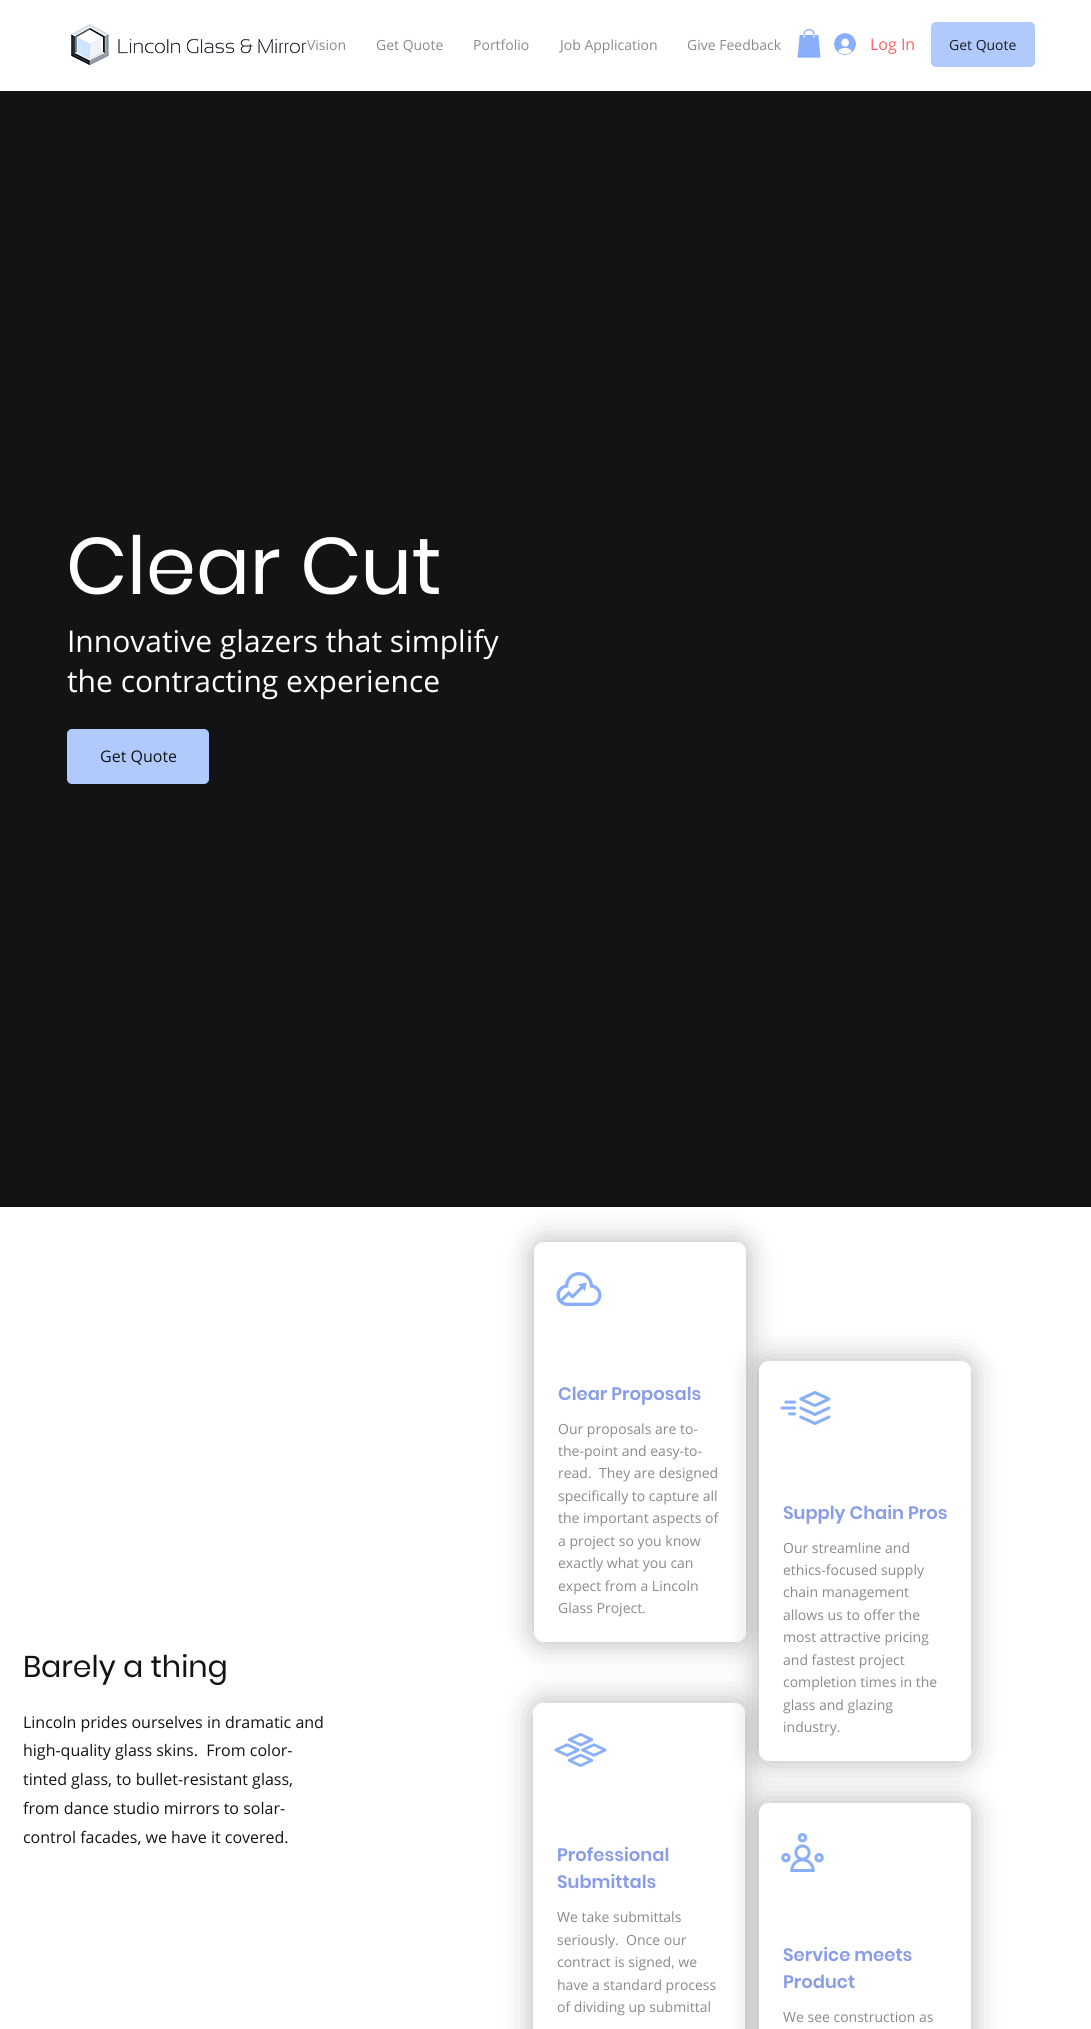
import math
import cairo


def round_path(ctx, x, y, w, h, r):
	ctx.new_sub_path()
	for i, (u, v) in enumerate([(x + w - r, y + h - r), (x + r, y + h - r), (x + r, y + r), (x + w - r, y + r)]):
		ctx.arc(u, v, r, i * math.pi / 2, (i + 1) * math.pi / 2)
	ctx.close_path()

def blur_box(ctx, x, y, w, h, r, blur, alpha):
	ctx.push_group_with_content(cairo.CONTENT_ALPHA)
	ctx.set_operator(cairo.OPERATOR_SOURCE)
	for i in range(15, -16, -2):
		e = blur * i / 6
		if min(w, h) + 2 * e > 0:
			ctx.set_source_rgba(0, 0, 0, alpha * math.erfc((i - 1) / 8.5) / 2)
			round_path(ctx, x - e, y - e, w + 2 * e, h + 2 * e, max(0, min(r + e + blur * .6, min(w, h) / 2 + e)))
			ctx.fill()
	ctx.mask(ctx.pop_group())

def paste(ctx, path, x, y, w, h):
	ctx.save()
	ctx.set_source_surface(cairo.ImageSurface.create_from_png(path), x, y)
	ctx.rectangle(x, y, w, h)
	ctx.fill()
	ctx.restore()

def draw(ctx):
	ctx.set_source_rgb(1, 1, 1)
	ctx.paint()
	paste(ctx, 'media/1.png', 71, 24, 256, 45)
	ctx.select_font_face('Open Sans')
	ctx.set_font_size(14)
	ctx.set_source_rgb(0.541, 0.541, 0.541)
	for x, y, s in [
		(307, 50, 'Vision'),
		(376, 50, 'Get Quote'),
		(473, 50, 'Portfolio'),
		(560, 50, 'Job Application'),
		(687, 50, 'Give Feedback'),
	]:
		ctx.move_to(x, y)
		ctx.show_text(s)
	paste(ctx, 'media/2.png', 797, 29, 24, 29)
	paste(ctx, 'media/3.png', 834, 33, 22, 22)
	ctx.set_font_size(16)
	ctx.set_source_rgb(0.992, 0.384, 0.384)
	ctx.move_to(870, 50)
	ctx.show_text('Log In')
	ctx.set_source_rgb(0.69, 0.792, 0.988)
	round_path(ctx, 931.5, 22.5, 103, 44, 4.5)
	ctx.fill_preserve()
	ctx.set_line_width(1)
	ctx.stroke()
	ctx.set_font_size(14)
	ctx.set_source_rgb(0.106, 0.11, 0.118)
	ctx.move_to(949, 50)
	ctx.show_text('Get Quote')
	ctx.set_source_rgb(0.078, 0.078, 0.086)
	ctx.rectangle(0, 91, 1091, 1116)
	ctx.fill()
	ctx.select_font_face('Poppins')
	ctx.set_font_size(80)
	ctx.set_source_rgb(1, 1, 1)
	ctx.move_to(66, 594)
	ctx.show_text('Clear Cut')
	ctx.select_font_face('Open Sans')
	ctx.set_font_size(30)
	ctx.move_to(67, 652)
	ctx.show_text('Innovative glazers that simplify')
	ctx.move_to(67, 692)
	ctx.show_text('the contracting experience')
	ctx.set_source_rgb(0.69, 0.792, 0.988)
	round_path(ctx, 67.5, 729.5, 141, 54, 4.5)
	ctx.fill_preserve()
	ctx.stroke()
	ctx.set_font_size(16)
	ctx.set_source_rgb(0.078, 0.078, 0.086)
	ctx.move_to(100, 762)
	ctx.show_text('Get Quote')
	ctx.select_font_face('Poppins')
	ctx.set_font_size(30)
	ctx.move_to(23, 1677)
	ctx.show_text('Barely a thing')
	ctx.select_font_face('Open Sans')
	ctx.set_font_size(16)
	for x, y, s in [
		(23, 1728, 'Lincoln prides ourselves in dramatic and'),
		(23, 1756, 'high-quality glass skins.  From color-'),
		(23, 1785, 'tinted glass, to bullet-resistant glass,'),
		(23, 1814, 'from dance studio mirrors to solar-'),
		(23, 1843, 'control facades, we have it covered.'),
	]:
		ctx.move_to(x, y)
		ctx.show_text(s)
	ctx.set_source_rgb(0, 0, 0)
	blur_box(ctx, 534, 1242, 212, 400, 10, 15, 0.3)
	ctx.set_source_rgb(1, 1, 1)
	round_path(ctx, 534, 1242, 212, 400, 10)
	ctx.fill()
	paste(ctx, 'media/4.png', 556, 1272, 46, 34)
	ctx.select_font_face('Poppins SemiBold')
	ctx.set_font_size(18)
	ctx.set_source_rgb(0.533, 0.612, 0.906)
	ctx.move_to(558, 1400)
	ctx.show_text('Clear Proposals')
	ctx.select_font_face('Open Sans')
	ctx.set_font_size(14)
	ctx.set_source_rgb(0.541, 0.541, 0.541)
	for x, y, s in [
		(558, 1434, 'Our proposals are to-'),
		(558, 1456, 'the-point and easy-to-'),
		(558, 1478, 'read.  They are designed'),
		(558, 1501, 'specifically to capture all'),
		(558, 1523, 'the important aspects of'),
		(558, 1546, 'a project so you know'),
		(558, 1568, 'exactly what you can'),
		(558, 1591, 'expect from a Lincoln'),
		(558, 1613, 'Glass Project.'),
	]:
		ctx.move_to(x, y)
		ctx.show_text(s)
	ctx.set_source_rgb(0, 0, 0)
	blur_box(ctx, 533, 1703, 212, 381, 10, 15, 0.3)
	ctx.set_source_rgb(1, 1, 1)
	round_path(ctx, 533, 1703, 212, 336, 10)
	ctx.fill()
	ctx.set_source_rgb(0, 0, 0)
	blur_box(ctx, 759, 1361, 212, 400, 10, 15, 0.3)
	ctx.set_source_rgb(1, 1, 1)
	round_path(ctx, 759, 1361, 212, 400, 10)
	ctx.fill()
	paste(ctx, 'media/5.png', 780, 1391, 51, 34)
	ctx.select_font_face('Poppins SemiBold')
	ctx.set_font_size(18)
	ctx.set_source_rgb(0.533, 0.612, 0.906)
	ctx.move_to(783, 1519)
	ctx.show_text('Supply Chain Pros')
	ctx.select_font_face('Open Sans')
	ctx.set_font_size(14)
	ctx.set_source_rgb(0.541, 0.541, 0.541)
	for x, y, s in [
		(783, 1553, 'Our streamline and'),
		(783, 1575, 'ethics-focused supply'),
		(783, 1597, 'chain management'),
		(783, 1620, 'allows us to offer the'),
		(783, 1642, 'most attractive pricing'),
		(783, 1665, 'and fastest project'),
		(783, 1687, 'completion times in the'),
		(783, 1710, 'glass and glazing'),
		(783, 1732, 'industry.'),
	]:
		ctx.move_to(x, y)
		ctx.show_text(s)
	paste(ctx, 'media/6.png', 554, 1733, 53, 34)
	ctx.select_font_face('Poppins SemiBold')
	ctx.set_font_size(18)
	ctx.set_source_rgb(0.533, 0.612, 0.906)
	ctx.move_to(557, 1861)
	ctx.show_text('Professional')
	ctx.move_to(557, 1888)
	ctx.show_text('Submittals')
	ctx.select_font_face('Open Sans')
	ctx.set_font_size(14)
	ctx.set_source_rgb(0.541, 0.541, 0.541)
	for x, y, s in [
		(557, 1922, 'We take submittals'),
		(557, 1945, 'seriously.  Once our'),
		(557, 1967, 'contract is signed, we'),
		(557, 1990, 'have a standard process'),
		(557, 2012, 'of dividing up submittal'),
	]:
		ctx.move_to(x, y)
		ctx.show_text(s)
	ctx.set_source_rgb(0, 0, 0)
	blur_box(ctx, 759, 1803, 212, 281, 10, 15, 0.3)
	ctx.set_source_rgb(1, 1, 1)
	round_path(ctx, 759, 1803, 212, 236, 10)
	ctx.fill()
	paste(ctx, 'media/7.png', 781, 1833, 43, 39)
	ctx.select_font_face('Poppins SemiBold')
	ctx.set_font_size(18)
	ctx.set_source_rgb(0.533, 0.612, 0.906)
	ctx.move_to(783, 1961)
	ctx.show_text('Service meets')
	ctx.move_to(783, 1988)
	ctx.show_text('Product')
	ctx.select_font_face('Open Sans')
	ctx.set_font_size(14)
	ctx.set_source_rgb(0.541, 0.541, 0.541)
	ctx.move_to(783, 2022)
	ctx.show_text('We see construction as')


surface = cairo.ImageSurface(cairo.FORMAT_RGB24, 1091, 2029)
ctx = cairo.Context(surface)
options = cairo.FontOptions()
options.set_hint_metrics(cairo.HINT_METRICS_OFF)
options.set_hint_style(cairo.HINT_STYLE_NONE)
ctx.set_font_options(options)
ctx.set_miter_limit(4)
draw(ctx)
surface.write_to_png('image.png')
